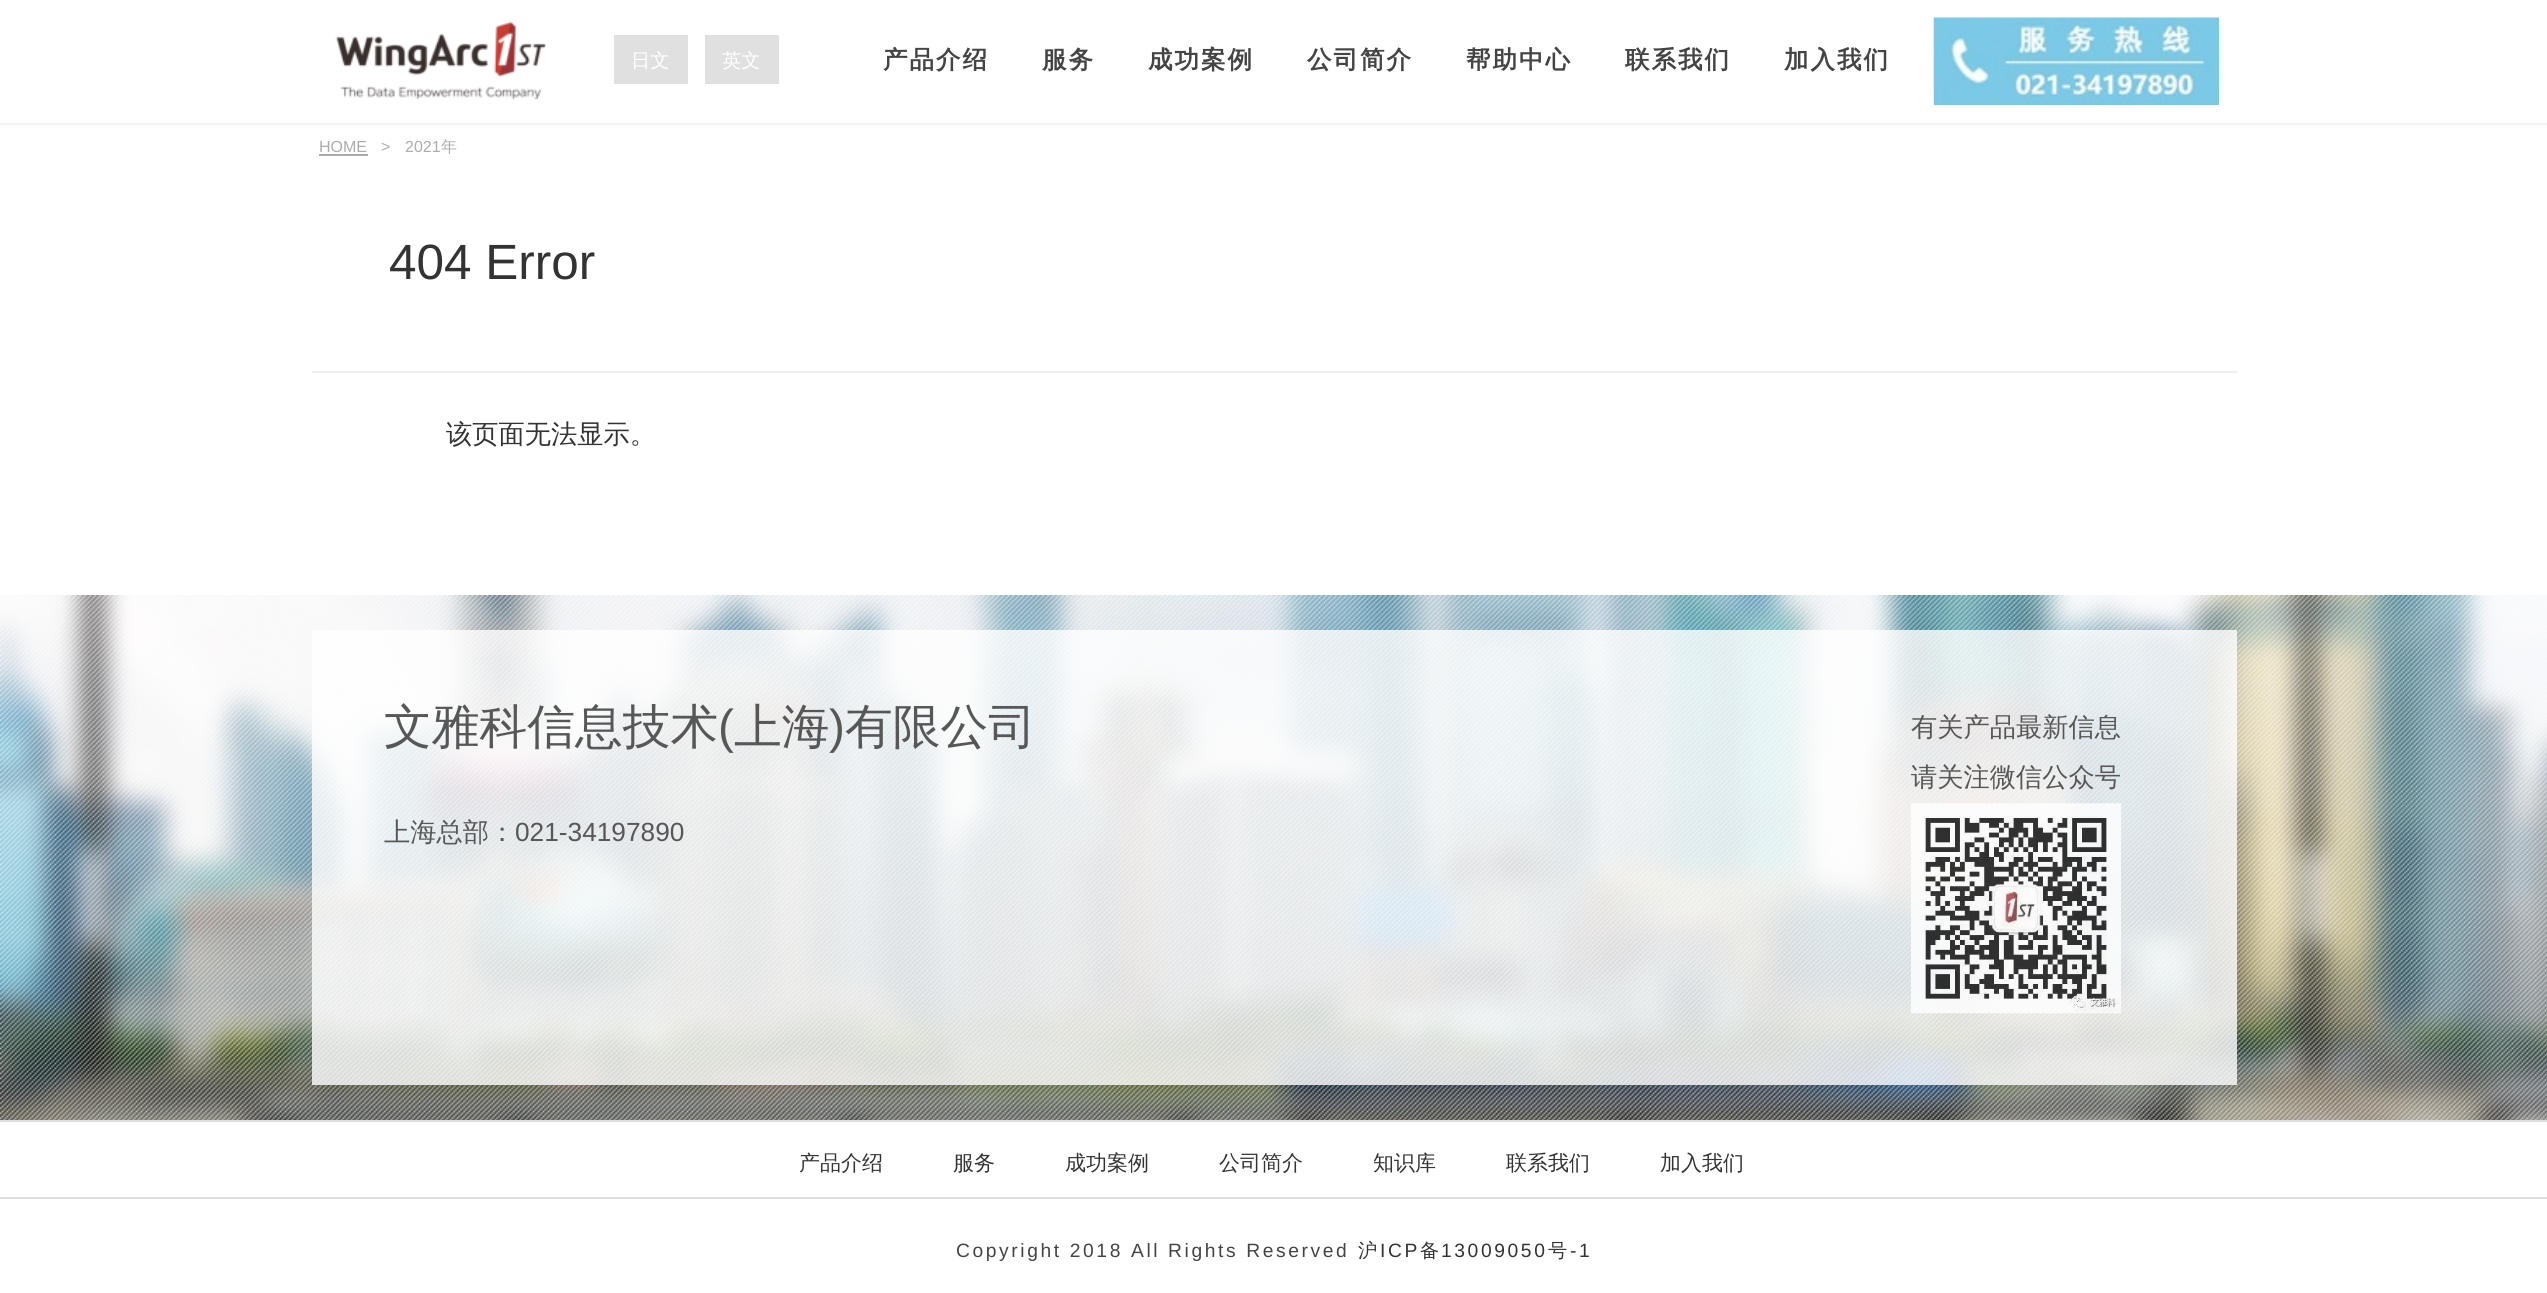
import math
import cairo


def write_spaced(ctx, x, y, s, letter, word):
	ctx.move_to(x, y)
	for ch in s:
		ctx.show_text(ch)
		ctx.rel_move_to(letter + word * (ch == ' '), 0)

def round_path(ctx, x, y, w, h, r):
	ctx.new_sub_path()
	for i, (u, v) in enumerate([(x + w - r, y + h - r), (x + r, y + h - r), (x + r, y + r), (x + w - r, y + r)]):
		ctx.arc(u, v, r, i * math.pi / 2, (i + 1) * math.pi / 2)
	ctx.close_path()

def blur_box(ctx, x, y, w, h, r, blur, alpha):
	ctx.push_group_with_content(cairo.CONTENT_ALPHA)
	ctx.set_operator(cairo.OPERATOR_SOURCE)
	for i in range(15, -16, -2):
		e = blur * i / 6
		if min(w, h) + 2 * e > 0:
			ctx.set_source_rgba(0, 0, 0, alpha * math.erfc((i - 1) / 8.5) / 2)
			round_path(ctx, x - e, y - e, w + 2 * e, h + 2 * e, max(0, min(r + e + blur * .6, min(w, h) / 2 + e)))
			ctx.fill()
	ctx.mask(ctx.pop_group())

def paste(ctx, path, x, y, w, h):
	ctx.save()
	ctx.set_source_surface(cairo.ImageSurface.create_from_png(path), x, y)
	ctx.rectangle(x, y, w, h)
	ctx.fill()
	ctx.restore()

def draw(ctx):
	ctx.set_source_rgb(1, 1, 1)
	ctx.paint()
	ctx.set_source_rgb(0.878, 0.878, 0.878)
	blur_box(ctx, 0, 0, 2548, 123, 0, 2.5, 1)
	ctx.set_source_rgb(1, 1, 1)
	ctx.rectangle(0, 0, 2547, 123)
	ctx.fill()
	paste(ctx, 'media/1.png', 335, 21, 212, 79)
	ctx.set_source_rgb(0.878, 0.878, 0.878)
	ctx.rectangle(614, 35, 74, 49)
	ctx.fill()
	ctx.select_font_face('WenQuanYi Zen Hei Medium')
	ctx.set_font_size(19.25)
	ctx.set_source_rgb(1, 1, 1)
	ctx.move_to(631, 67)
	ctx.show_text('日文')
	ctx.set_source_rgb(0.878, 0.878, 0.878)
	ctx.rectangle(705, 35, 74, 49)
	ctx.fill()
	ctx.set_source_rgb(1, 1, 1)
	ctx.move_to(722, 67)
	ctx.show_text('英文')
	ctx.select_font_face('WenQuanYi Zen Hei', cairo.FONT_SLANT_NORMAL, cairo.FONT_WEIGHT_BOLD)
	ctx.set_font_size(24.5)
	ctx.set_source_rgb(0.267, 0.267, 0.267)
	for x, y, s in [
		(883, 68, '产品介绍'),
		(1042, 68, '服务'),
		(1148, 68, '成功案例'),
		(1307, 68, '公司简介'),
		(1466, 68, '帮助中心'),
		(1625, 68, '联系我们'),
		(1784, 68, '加入我们'),
	]:
		write_spaced(ctx, x, y, s, 2, 0)
	paste(ctx, 'media/2.png', 1933, 17, 286, 88)
	ctx.select_font_face('Liberation Sans')
	ctx.set_font_size(16)
	ctx.set_source_rgb(0.675, 0.675, 0.675)
	ctx.move_to(319, 152)
	ctx.show_text('HOME')
	ctx.rectangle(319, 154, 49, 2)
	ctx.fill()
	ctx.move_to(381, 152)
	ctx.show_text('>')
	ctx.move_to(405, 152)
	ctx.show_text('2021')
	ctx.select_font_face('WenQuanYi Zen Hei Medium')
	ctx.move_to(441, 152)
	ctx.show_text('年')
	ctx.set_source_rgb(0.937, 0.937, 0.937)
	ctx.rectangle(312, 371, 1925, 2)
	ctx.fill()
	ctx.select_font_face('Liberation Sans')
	ctx.set_font_size(49.5)
	ctx.set_source_rgb(0.2, 0.2, 0.2)
	ctx.move_to(389, 279)
	ctx.show_text('404 Error')
	ctx.select_font_face('WenQuanYi Zen Hei Medium')
	ctx.set_font_size(26.25)
	ctx.move_to(446, 443)
	ctx.show_text('该页面无法显示。')
	paste(ctx, 'media/3.png', 0, 595, 2547, 525)
	ctx.set_source_rgba(1, 1, 1, 0.8)
	ctx.rectangle(312, 630, 1925, 455)
	ctx.fill()
	ctx.set_font_size(47.75)
	ctx.set_source_rgb(0.341, 0.341, 0.345)
	ctx.move_to(384, 743)
	ctx.show_text('文雅科信息技术')
	ctx.select_font_face('Liberation Sans')
	ctx.move_to(718, 743)
	ctx.show_text('(')
	ctx.select_font_face('WenQuanYi Zen Hei Medium')
	ctx.move_to(734, 743)
	ctx.show_text('上海')
	ctx.select_font_face('Liberation Sans')
	ctx.move_to(829, 743)
	ctx.show_text(')')
	ctx.select_font_face('WenQuanYi Zen Hei Medium')
	ctx.move_to(845, 743)
	ctx.show_text('有限公司')
	ctx.set_font_size(26.25)
	ctx.move_to(1911, 736)
	ctx.show_text('有关产品最新信息')
	ctx.move_to(1911, 786)
	ctx.show_text('请关注微信公众号')
	paste(ctx, 'media/4.png', 1911, 803, 210, 211)
	ctx.move_to(384, 841)
	ctx.show_text('上海总部：')
	ctx.select_font_face('Liberation Sans')
	ctx.move_to(515, 841)
	ctx.show_text('021-34197890')
	ctx.set_source_rgb(0.867, 0.867, 0.867)
	ctx.rectangle(0, 1120, 2547, 2)
	ctx.fill()
	ctx.rectangle(0, 1197, 2547, 2)
	ctx.fill()
	ctx.select_font_face('WenQuanYi Zen Hei Medium')
	ctx.set_font_size(21)
	ctx.set_source_rgb(0.2, 0.2, 0.2)
	for x, y, s in [
		(799, 1170, '产品介绍'),
		(953, 1170, '服务'),
		(1065, 1170, '成功案例'),
		(1219, 1170, '公司简介'),
		(1373, 1170, '知识库'),
		(1506, 1170, '联系我们'),
		(1660, 1170, '加入我们'),
	]:
		ctx.move_to(x, y)
		ctx.show_text(s)
	ctx.select_font_face('Liberation Sans')
	ctx.set_font_size(19.25)
	ctx.set_source_rgb(0.267, 0.267, 0.267)
	write_spaced(ctx, 956, 1257, 'Copyright 2018 All Rights Reserved', 2.6, 0)
	ctx.select_font_face('WenQuanYi Zen Hei Medium')
	ctx.set_source_rgb(0.2, 0.2, 0.2)
	write_spaced(ctx, 1358, 1257, '沪', 2.6, 0)
	ctx.select_font_face('Liberation Sans')
	write_spaced(ctx, 1380, 1257, 'ICP', 2.6, 0)
	ctx.select_font_face('WenQuanYi Zen Hei Medium')
	write_spaced(ctx, 1420, 1257, '备', 2.6, 0)
	ctx.select_font_face('Liberation Sans')
	write_spaced(ctx, 1441, 1257, '13009050', 2.6, 0)
	ctx.select_font_face('WenQuanYi Zen Hei Medium')
	write_spaced(ctx, 1548, 1257, '号', 2.6, 0)
	ctx.select_font_face('Liberation Sans')
	write_spaced(ctx, 1570, 1257, '-1', 2.6, 0)


surface = cairo.ImageSurface(cairo.FORMAT_RGB24, 2547, 1293)
ctx = cairo.Context(surface)
options = cairo.FontOptions()
options.set_hint_metrics(cairo.HINT_METRICS_OFF)
options.set_hint_style(cairo.HINT_STYLE_NONE)
ctx.set_font_options(options)
ctx.set_miter_limit(4)
draw(ctx)
surface.write_to_png('image.png')
